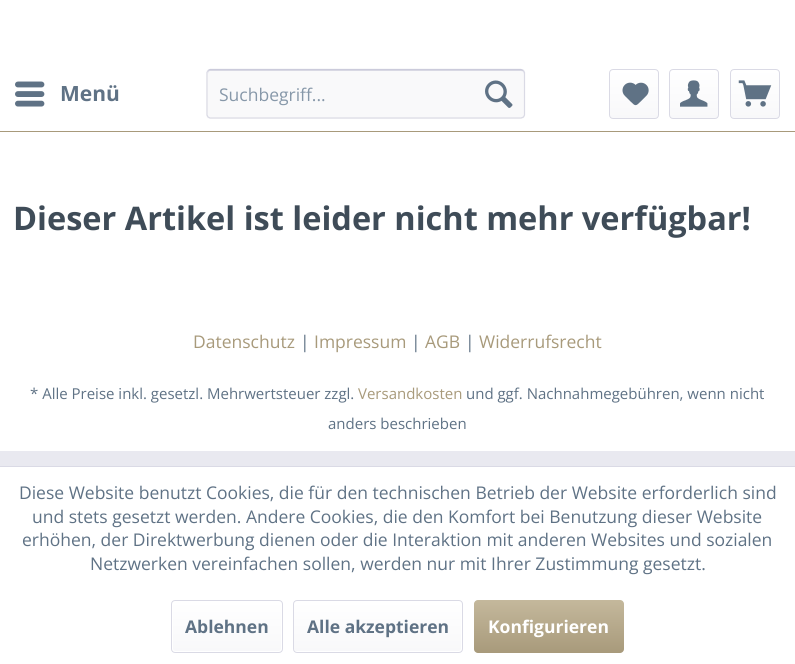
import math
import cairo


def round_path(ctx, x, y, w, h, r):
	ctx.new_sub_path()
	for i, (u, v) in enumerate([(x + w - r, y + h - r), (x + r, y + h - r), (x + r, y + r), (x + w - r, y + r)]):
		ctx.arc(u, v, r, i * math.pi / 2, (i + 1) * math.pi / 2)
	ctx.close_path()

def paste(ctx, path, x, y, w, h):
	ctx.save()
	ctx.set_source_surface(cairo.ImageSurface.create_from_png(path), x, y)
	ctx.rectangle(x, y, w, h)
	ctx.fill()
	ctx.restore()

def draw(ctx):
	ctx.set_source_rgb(0.914, 0.914, 0.941)
	ctx.paint()
	ctx.set_source_rgb(1, 1, 1)
	ctx.rectangle(0, 0, 795, 451)
	ctx.fill()
	ctx.set_source_rgb(0.659, 0.604, 0.482)
	ctx.rectangle(0, 131, 795, 1)
	ctx.fill()
	paste(ctx, 'media/1.png', 15, 81, 30, 26)
	ctx.select_font_face('Open Sans', cairo.FONT_SLANT_NORMAL, cairo.FONT_WEIGHT_BOLD)
	ctx.set_font_size(21)
	ctx.set_source_rgb(0.373, 0.447, 0.522)
	ctx.move_to(60, 101)
	ctx.show_text('Menü')
	ctx.set_source_rgb(0.973, 0.973, 0.98)
	round_path(ctx, 206, 69, 319, 50, 4)
	ctx.fill()
	ctx.set_source_rgb(0.855, 0.855, 0.898)
	ctx.new_path()
	ctx.move_to(210, 71)
	ctx.line_to(521, 71)
	ctx.curve_to(523, 71, 524, 72, 524, 74)
	ctx.line_to(524, 72)
	ctx.curve_to(524, 71, 523, 70, 522, 70)
	ctx.line_to(210, 70)
	ctx.curve_to(209, 70, 208, 71, 208, 72)
	ctx.line_to(208, 74)
	ctx.curve_to(208, 72, 209, 71, 210, 71)
	ctx.close_path()
	ctx.fill()
	ctx.new_path()
	ctx.move_to(208, 70.5)
	ctx.line_to(210, 69.5)
	ctx.line_to(521, 69.5)
	ctx.line_to(523.5, 70.5)
	ctx.set_source_rgb(0.796, 0.796, 0.859)
	ctx.set_line_width(1.2)
	ctx.stroke()
	ctx.new_path()
	ctx.move_to(523.5, 70.5)
	ctx.line_to(524.5, 72.5)
	ctx.line_to(524.5, 115)
	ctx.line_to(523.5, 117)
	ctx.line_to(521, 118)
	ctx.line_to(210, 118)
	ctx.line_to(208, 117)
	ctx.line_to(207, 115)
	ctx.line_to(207, 72.5)
	ctx.line_to(208, 70.5)
	ctx.set_source_rgb(0.855, 0.855, 0.898)
	ctx.stroke()
	ctx.select_font_face('Open Sans')
	ctx.set_font_size(17.5)
	ctx.set_source_rgb(0.529, 0.596, 0.663)
	ctx.move_to(219, 101)
	ctx.show_text('Suchbegriff...')
	paste(ctx, 'media/2.png', 485, 80, 28, 28)
	gradient = cairo.LinearGradient(634, 70, 634, 118)
	gradient.add_color_stop_rgba(0, 1, 1, 1, 1)
	gradient.add_color_stop_rgba(1, 0.973, 0.973, 0.98, 1)
	ctx.set_source(gradient)
	round_path(ctx, 610, 70, 48, 48, 2.5)
	ctx.fill()
	round_path(ctx, 609.5, 69.5, 49, 49, 3.5)
	ctx.set_source_rgb(0.855, 0.855, 0.898)
	ctx.set_line_width(1)
	ctx.stroke()
	paste(ctx, 'media/3.png', 622, 82, 27, 24)
	gradient = cairo.LinearGradient(694, 70, 694, 118)
	gradient.add_color_stop_rgba(0, 1, 1, 1, 1)
	gradient.add_color_stop_rgba(1, 0.973, 0.973, 0.98, 1)
	ctx.set_source(gradient)
	round_path(ctx, 670, 70, 48, 48, 2.5)
	ctx.fill()
	round_path(ctx, 669.5, 69.5, 49, 49, 3.5)
	ctx.set_source_rgb(0.855, 0.855, 0.898)
	ctx.stroke()
	paste(ctx, 'media/4.png', 680, 80, 28, 27)
	gradient = cairo.LinearGradient(755, 70, 755, 118)
	gradient.add_color_stop_rgba(0, 1, 1, 1, 1)
	gradient.add_color_stop_rgba(1, 0.973, 0.973, 0.98, 1)
	ctx.set_source(gradient)
	round_path(ctx, 731, 70, 48, 48, 2.5)
	ctx.fill()
	round_path(ctx, 730.5, 69.5, 49, 49, 3.5)
	ctx.set_source_rgb(0.855, 0.855, 0.898)
	ctx.stroke()
	paste(ctx, 'media/5.png', 738, 80, 34, 27)
	ctx.select_font_face('Open Sans', cairo.FONT_SLANT_NORMAL, cairo.FONT_WEIGHT_BOLD)
	ctx.set_font_size(32.5)
	ctx.set_source_rgb(0.247, 0.298, 0.345)
	ctx.move_to(13, 230)
	ctx.show_text('Dieser Artikel ist leider nicht mehr verfügbar!')
	ctx.select_font_face('Open Sans')
	ctx.set_font_size(17.5)
	ctx.set_source_rgb(0.659, 0.604, 0.482)
	ctx.move_to(193, 348)
	ctx.show_text('Datenschutz')
	ctx.set_source_rgb(0.373, 0.447, 0.522)
	ctx.move_to(300, 348)
	ctx.show_text('|')
	ctx.set_source_rgb(0.659, 0.604, 0.482)
	ctx.move_to(314, 348)
	ctx.show_text('Impressum')
	ctx.set_source_rgb(0.373, 0.447, 0.522)
	ctx.move_to(411, 348)
	ctx.show_text('|')
	ctx.set_source_rgb(0.659, 0.604, 0.482)
	ctx.move_to(425, 348)
	ctx.show_text('AGB')
	ctx.set_source_rgb(0.373, 0.447, 0.522)
	ctx.move_to(465, 348)
	ctx.show_text('|')
	ctx.set_source_rgb(0.659, 0.604, 0.482)
	ctx.move_to(479, 348)
	ctx.show_text('Widerrufsrecht')
	ctx.set_font_size(15)
	ctx.set_source_rgb(0.373, 0.447, 0.522)
	ctx.move_to(30, 399)
	ctx.show_text('* Alle Preise inkl. gesetzl. Mehrwertsteuer zzgl.')
	ctx.set_source_rgb(0.659, 0.604, 0.482)
	ctx.move_to(358, 399)
	ctx.show_text('Versandkosten')
	ctx.set_source_rgb(0.373, 0.447, 0.522)
	ctx.move_to(466, 399)
	ctx.show_text('und ggf. Nachnahmegebühren, wenn nicht')
	ctx.move_to(328, 429)
	ctx.show_text('anders beschrieben')
	ctx.set_source_rgb(1, 1, 1)
	ctx.rectangle(0, 467, 795, 197)
	ctx.fill()
	ctx.set_source_rgb(0.855, 0.855, 0.898)
	ctx.rectangle(0, 466, 795, 1)
	ctx.fill()
	ctx.set_font_size(17.5)
	ctx.set_source_rgb(0.373, 0.447, 0.522)
	for x, y, s in [
		(19, 499, 'Diese Website benutzt Cookies, die für den technischen Betrieb der Website erforderlich sind'),
		(32, 523, 'und stets gesetzt werden. Andere Cookies, die den Komfort bei Benutzung dieser Website'),
		(22, 546, 'erhöhen, der Direktwerbung dienen oder die Interaktion mit anderen Websites und sozialen'),
		(90, 570, 'Netzwerken vereinfachen sollen, werden nur mit Ihrer Zustimmung gesetzt.'),
	]:
		ctx.move_to(x, y)
		ctx.show_text(s)
	gradient = cairo.LinearGradient(227, 601, 227, 651)
	gradient.add_color_stop_rgba(0, 1, 1, 1, 1)
	gradient.add_color_stop_rgba(1, 0.973, 0.973, 0.98, 1)
	ctx.set_source(gradient)
	round_path(ctx, 173, 601, 108, 50, 2.5)
	ctx.fill()
	round_path(ctx, 171.5, 600.5, 111, 52, 3.5)
	ctx.set_source_rgb(0.855, 0.855, 0.898)
	ctx.stroke()
	ctx.select_font_face('Open Sans', cairo.FONT_SLANT_NORMAL, cairo.FONT_WEIGHT_BOLD)
	ctx.set_source_rgb(0.373, 0.447, 0.522)
	ctx.move_to(185, 633)
	ctx.show_text('Ablehnen')
	gradient = cairo.LinearGradient(378, 601, 378, 651)
	gradient.add_color_stop_rgba(0, 1, 1, 1, 1)
	gradient.add_color_stop_rgba(1, 0.973, 0.973, 0.98, 1)
	ctx.set_source(gradient)
	round_path(ctx, 294, 601, 167, 50, 2.5)
	ctx.fill()
	round_path(ctx, 293.5, 600.5, 169, 52, 3.5)
	ctx.set_source_rgb(0.855, 0.855, 0.898)
	ctx.stroke()
	ctx.set_source_rgb(0.373, 0.447, 0.522)
	ctx.move_to(307, 633)
	ctx.show_text('Alle akzeptieren')
	gradient = cairo.LinearGradient(549, 600, 549, 653)
	gradient.add_color_stop_rgba(0, 0.769, 0.722, 0.612, 1)
	gradient.add_color_stop_rgba(1, 0.659, 0.604, 0.482, 1)
	ctx.set_source(gradient)
	round_path(ctx, 474, 600, 150, 53, 4)
	ctx.fill()
	ctx.set_source_rgb(1, 1, 1)
	ctx.move_to(488, 633)
	ctx.show_text('Konfigurieren')


surface = cairo.ImageSurface(cairo.FORMAT_RGB24, 795, 664)
ctx = cairo.Context(surface)
options = cairo.FontOptions()
options.set_hint_metrics(cairo.HINT_METRICS_OFF)
options.set_hint_style(cairo.HINT_STYLE_NONE)
ctx.set_font_options(options)
ctx.set_miter_limit(4)
draw(ctx)
surface.write_to_png('image.png')
